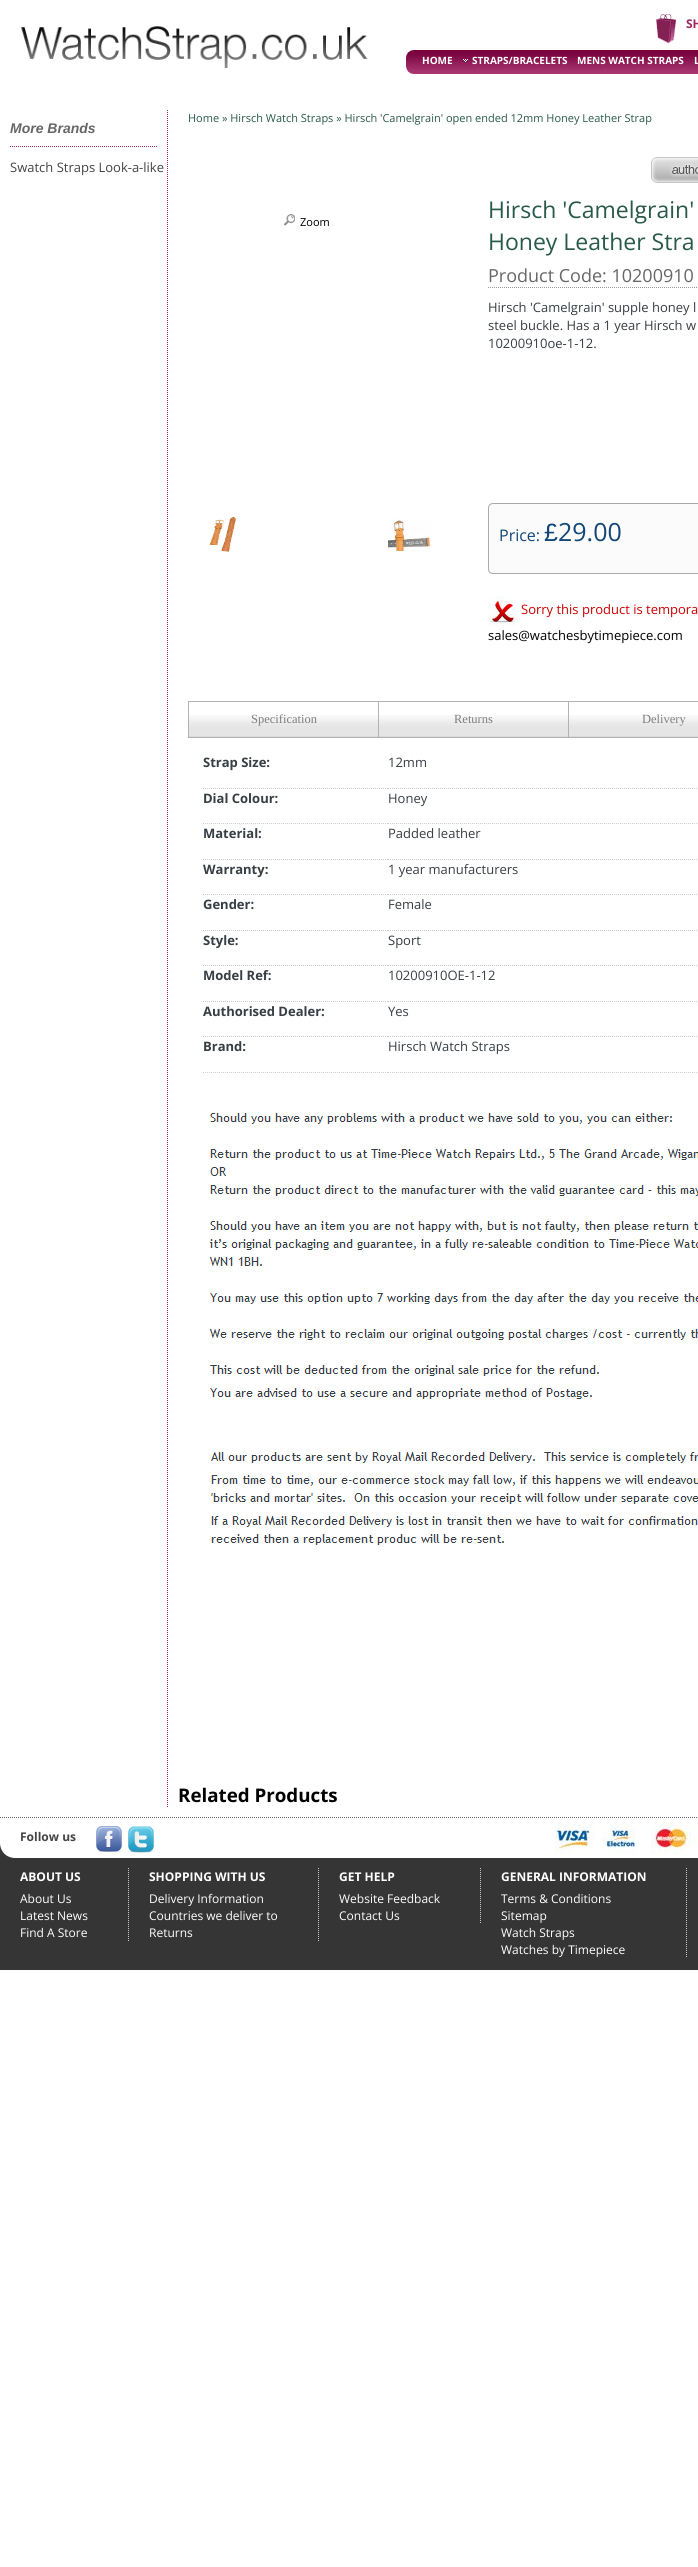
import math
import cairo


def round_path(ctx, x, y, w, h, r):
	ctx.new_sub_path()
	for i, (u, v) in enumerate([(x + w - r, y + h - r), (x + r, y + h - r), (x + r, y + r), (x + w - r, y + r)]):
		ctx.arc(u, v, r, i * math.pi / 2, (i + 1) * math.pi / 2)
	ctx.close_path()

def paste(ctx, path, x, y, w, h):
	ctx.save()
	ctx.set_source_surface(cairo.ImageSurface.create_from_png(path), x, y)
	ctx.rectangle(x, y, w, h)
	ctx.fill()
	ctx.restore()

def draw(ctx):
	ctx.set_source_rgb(1, 1, 1)
	ctx.paint()
	paste(ctx, 'media/1.png', 21, 26, 347, 43)
	paste(ctx, 'media/2.png', 656, 14, 20, 30)
	ctx.select_font_face('Open Sans', cairo.FONT_SLANT_NORMAL, cairo.FONT_WEIGHT_BOLD)
	ctx.set_font_size(12)
	ctx.set_source_rgb(0.608, 0.157, 0.388)
	ctx.move_to(686, 28)
	ctx.show_text('SH')
	paste(ctx, 'media/3.png', 406, 50, 292, 24)
	ctx.set_font_size(10)
	ctx.set_source_rgb(1, 1, 1)
	ctx.move_to(422, 64)
	ctx.show_text('HOME')
	paste(ctx, 'media/4.png', 463, 59, 5, 3)
	for x, y, s in [
		(472, 64, 'STRAPS/BRACELETS'),
		(577, 64, 'MENS WATCH STRAPS'),
		(694, 64, 'L'),
	]:
		ctx.move_to(x, y)
		ctx.show_text(s)
	ctx.set_source_rgb(0.208, 0.208, 0.208)
	ctx.rectangle(0, 1843, 698, 127)
	ctx.fill()
	ctx.set_source_rgb(1, 1, 1)
	ctx.new_path()
	ctx.move_to(0, 110)
	ctx.line_to(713, 110)
	ctx.line_to(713, 1843)
	ctx.curve_to(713, 1851.5, 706.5, 1858, 698, 1858)
	ctx.line_to(15, 1858)
	ctx.curve_to(6.5, 1858, 0, 1851.5, 0, 1843)
	ctx.close_path()
	ctx.fill()
	ctx.new_path()
	ctx.move_to(10, 146.5)
	ctx.line_to(157, 146.5)
	ctx.set_source_rgb(0.608, 0.157, 0.388)
	ctx.set_line_width(1)
	ctx.set_dash([1, 1])
	ctx.stroke()
	ctx.select_font_face('Liberation Sans', cairo.FONT_SLANT_ITALIC, cairo.FONT_WEIGHT_BOLD)
	ctx.set_font_size(14)
	ctx.set_source_rgb(0.4, 0.4, 0.4)
	ctx.move_to(10, 133)
	ctx.show_text('More Brands')
	ctx.select_font_face('Open Sans')
	ctx.set_font_size(13)
	ctx.set_source_rgb(0.267, 0.267, 0.267)
	ctx.move_to(10, 172)
	ctx.show_text('Swatch Straps Look-a-like')
	ctx.new_path()
	ctx.move_to(167.5, 110)
	ctx.line_to(167.5, 1807)
	ctx.set_source_rgb(0.608, 0.157, 0.388)
	ctx.stroke()
	ctx.set_font_size(11)
	ctx.set_source_rgb(0.161, 0.349, 0.294)
	ctx.move_to(188, 122)
	ctx.show_text('Home » Hirsch Watch Straps » Hirsch \'Camelgrain\' open ended 12mm Honey Leather Strap')
	paste(ctx, 'media/5.png', 284, 214, 11, 12)
	ctx.set_source_rgb(0, 0, 0)
	ctx.move_to(300, 226)
	ctx.show_text('Zoom')
	paste(ctx, 'media/6.png', 209, 517, 28, 36)
	paste(ctx, 'media/7.png', 388, 518, 44, 33)
	paste(ctx, 'media/8.png', 651, 157, 47, 26)
	ctx.set_font_size(23)
	ctx.set_source_rgb(0.161, 0.349, 0.294)
	ctx.move_to(488, 218)
	ctx.show_text('Hirsch \'Camelgrain\'')
	ctx.move_to(488, 250)
	ctx.show_text('Honey Leather Stra')
	ctx.set_font_size(18)
	ctx.set_source_rgb(0.4, 0.4, 0.4)
	ctx.move_to(488, 282)
	ctx.show_text('Product Code: 10200910')
	ctx.new_path()
	ctx.move_to(488, 287.5)
	ctx.line_to(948, 287.5)
	ctx.set_source_rgb(0.6, 0.6, 0.6)
	ctx.stroke()
	ctx.set_font_size(13)
	ctx.set_source_rgb(0.216, 0.243, 0.267)
	for x, y, s in [
		(488, 312, 'Hirsch \'Camelgrain\' supple honey l'),
		(488, 330, 'steel buckle. Has a 1 year Hirsch w'),
		(488, 348, '10200910oe-1-12.'),
	]:
		ctx.move_to(x, y)
		ctx.show_text(s)
	ctx.set_source_rgb(0.984, 0.984, 0.984)
	round_path(ctx, 488.5, 503.5, 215, 70, 4.5)
	ctx.fill_preserve()
	ctx.set_source_rgb(0.667, 0.667, 0.667)
	ctx.set_dash([])
	ctx.stroke()
	ctx.set_font_size(16)
	ctx.set_source_rgb(0.067, 0.278, 0.463)
	ctx.move_to(499, 541)
	ctx.show_text('Price:')
	ctx.select_font_face('Liberation Sans')
	ctx.set_font_size(25)
	ctx.move_to(544, 541)
	ctx.show_text('£')
	ctx.select_font_face('Open Sans')
	ctx.move_to(558, 541)
	ctx.show_text('29.00')
	paste(ctx, 'media/9.png', 488, 596, 30, 30)
	ctx.set_font_size(13)
	ctx.set_source_rgb(0.8, 0, 0)
	ctx.move_to(521, 614)
	ctx.show_text('Sorry this product is tempora')
	ctx.set_source_rgb(0, 0, 0)
	ctx.move_to(488, 640)
	ctx.show_text('sales@watchesbytimepiece.com')
	paste(ctx, 'media/10.png', 189, 715, 189, 22)
	ctx.rectangle(188.5, 701.5, 190, 36)
	ctx.set_source_rgb(0.698, 0.698, 0.698)
	ctx.stroke()
	ctx.select_font_face('Liberation Serif')
	ctx.set_font_size(12.5)
	ctx.set_source_rgb(0.494, 0.494, 0.494)
	ctx.move_to(251, 723)
	ctx.show_text('Specification')
	paste(ctx, 'media/10.png', 379, 715, 189, 22)
	ctx.set_source_rgb(0.698, 0.698, 0.698)
	ctx.rectangle(379, 701, 319, 1)
	ctx.rectangle(568, 701, 1, 37)
	ctx.rectangle(379, 737, 319, 1)
	ctx.fill()
	ctx.set_source_rgb(0.494, 0.494, 0.494)
	ctx.move_to(454, 723)
	ctx.show_text('Returns')
	paste(ctx, 'media/11.png', 569, 715, 129, 22)
	ctx.move_to(642, 723)
	ctx.show_text('Delivery')
	ctx.new_path()
	ctx.move_to(203, 788.5)
	ctx.line_to(388, 788.5)
	ctx.set_source_rgb(0.8, 0.8, 0.8)
	ctx.set_dash([1, 1])
	ctx.stroke()
	ctx.select_font_face('Open Sans', cairo.FONT_SLANT_NORMAL, cairo.FONT_WEIGHT_BOLD)
	ctx.set_font_size(13)
	ctx.set_source_rgb(0.216, 0.243, 0.267)
	ctx.move_to(203, 767)
	ctx.show_text('Strap Size:')
	ctx.new_path()
	ctx.move_to(388, 788.5)
	ctx.line_to(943, 788.5)
	ctx.set_source_rgb(0.8, 0.8, 0.8)
	ctx.stroke()
	ctx.select_font_face('Open Sans')
	ctx.set_source_rgb(0.216, 0.243, 0.267)
	ctx.move_to(388, 767)
	ctx.show_text('12mm')
	ctx.new_path()
	ctx.move_to(203, 823.5)
	ctx.line_to(388, 823.5)
	ctx.set_source_rgb(0.8, 0.8, 0.8)
	ctx.stroke()
	ctx.select_font_face('Open Sans', cairo.FONT_SLANT_NORMAL, cairo.FONT_WEIGHT_BOLD)
	ctx.set_source_rgb(0.216, 0.243, 0.267)
	ctx.move_to(203, 803)
	ctx.show_text('Dial Colour:')
	ctx.new_path()
	ctx.move_to(388, 823.5)
	ctx.line_to(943, 823.5)
	ctx.set_source_rgb(0.8, 0.8, 0.8)
	ctx.stroke()
	ctx.select_font_face('Open Sans')
	ctx.set_source_rgb(0.216, 0.243, 0.267)
	ctx.move_to(388, 803)
	ctx.show_text('Honey')
	ctx.new_path()
	ctx.move_to(203, 859.5)
	ctx.line_to(388, 859.5)
	ctx.set_source_rgb(0.8, 0.8, 0.8)
	ctx.stroke()
	ctx.select_font_face('Open Sans', cairo.FONT_SLANT_NORMAL, cairo.FONT_WEIGHT_BOLD)
	ctx.set_source_rgb(0.216, 0.243, 0.267)
	ctx.move_to(203, 838)
	ctx.show_text('Material:')
	ctx.new_path()
	ctx.move_to(388, 859.5)
	ctx.line_to(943, 859.5)
	ctx.set_source_rgb(0.8, 0.8, 0.8)
	ctx.stroke()
	ctx.select_font_face('Open Sans')
	ctx.set_source_rgb(0.216, 0.243, 0.267)
	ctx.move_to(388, 838)
	ctx.show_text('Padded leather')
	ctx.new_path()
	ctx.move_to(203, 894.5)
	ctx.line_to(388, 894.5)
	ctx.set_source_rgb(0.8, 0.8, 0.8)
	ctx.stroke()
	ctx.select_font_face('Open Sans', cairo.FONT_SLANT_NORMAL, cairo.FONT_WEIGHT_BOLD)
	ctx.set_source_rgb(0.216, 0.243, 0.267)
	ctx.move_to(203, 874)
	ctx.show_text('Warranty:')
	ctx.new_path()
	ctx.move_to(388, 894.5)
	ctx.line_to(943, 894.5)
	ctx.set_source_rgb(0.8, 0.8, 0.8)
	ctx.stroke()
	ctx.select_font_face('Open Sans')
	ctx.set_source_rgb(0.216, 0.243, 0.267)
	ctx.move_to(388, 874)
	ctx.show_text('1 year manufacturers')
	ctx.new_path()
	ctx.move_to(203, 930.5)
	ctx.line_to(388, 930.5)
	ctx.set_source_rgb(0.8, 0.8, 0.8)
	ctx.stroke()
	ctx.select_font_face('Open Sans', cairo.FONT_SLANT_NORMAL, cairo.FONT_WEIGHT_BOLD)
	ctx.set_source_rgb(0.216, 0.243, 0.267)
	ctx.move_to(203, 909)
	ctx.show_text('Gender:')
	ctx.new_path()
	ctx.move_to(388, 930.5)
	ctx.line_to(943, 930.5)
	ctx.set_source_rgb(0.8, 0.8, 0.8)
	ctx.stroke()
	ctx.select_font_face('Open Sans')
	ctx.set_source_rgb(0.216, 0.243, 0.267)
	ctx.move_to(388, 909)
	ctx.show_text('Female')
	ctx.new_path()
	ctx.move_to(203, 965.5)
	ctx.line_to(388, 965.5)
	ctx.set_source_rgb(0.8, 0.8, 0.8)
	ctx.stroke()
	ctx.select_font_face('Open Sans', cairo.FONT_SLANT_NORMAL, cairo.FONT_WEIGHT_BOLD)
	ctx.set_source_rgb(0.216, 0.243, 0.267)
	ctx.move_to(203, 945)
	ctx.show_text('Style:')
	ctx.new_path()
	ctx.move_to(388, 965.5)
	ctx.line_to(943, 965.5)
	ctx.set_source_rgb(0.8, 0.8, 0.8)
	ctx.stroke()
	ctx.select_font_face('Open Sans')
	ctx.set_source_rgb(0.216, 0.243, 0.267)
	ctx.move_to(388, 945)
	ctx.show_text('Sport')
	ctx.new_path()
	ctx.move_to(203, 1001.5)
	ctx.line_to(388, 1001.5)
	ctx.set_source_rgb(0.8, 0.8, 0.8)
	ctx.stroke()
	ctx.select_font_face('Open Sans', cairo.FONT_SLANT_NORMAL, cairo.FONT_WEIGHT_BOLD)
	ctx.set_source_rgb(0.216, 0.243, 0.267)
	ctx.move_to(203, 980)
	ctx.show_text('Model Ref:')
	ctx.new_path()
	ctx.move_to(388, 1001.5)
	ctx.line_to(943, 1001.5)
	ctx.set_source_rgb(0.8, 0.8, 0.8)
	ctx.stroke()
	ctx.select_font_face('Open Sans')
	ctx.set_source_rgb(0.216, 0.243, 0.267)
	ctx.move_to(388, 980)
	ctx.show_text('10200910OE-1-12')
	ctx.new_path()
	ctx.move_to(203, 1036.5)
	ctx.line_to(388, 1036.5)
	ctx.set_source_rgb(0.8, 0.8, 0.8)
	ctx.stroke()
	ctx.select_font_face('Open Sans', cairo.FONT_SLANT_NORMAL, cairo.FONT_WEIGHT_BOLD)
	ctx.set_source_rgb(0.216, 0.243, 0.267)
	ctx.move_to(203, 1016)
	ctx.show_text('Authorised Dealer:')
	ctx.new_path()
	ctx.move_to(388, 1036.5)
	ctx.line_to(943, 1036.5)
	ctx.set_source_rgb(0.8, 0.8, 0.8)
	ctx.stroke()
	ctx.select_font_face('Open Sans')
	ctx.set_source_rgb(0.216, 0.243, 0.267)
	ctx.move_to(388, 1016)
	ctx.show_text('Yes')
	ctx.new_path()
	ctx.move_to(203, 1072.5)
	ctx.line_to(388, 1072.5)
	ctx.set_source_rgb(0.8, 0.8, 0.8)
	ctx.stroke()
	ctx.select_font_face('Open Sans', cairo.FONT_SLANT_NORMAL, cairo.FONT_WEIGHT_BOLD)
	ctx.set_source_rgb(0.216, 0.243, 0.267)
	ctx.move_to(203, 1051)
	ctx.show_text('Brand:')
	ctx.new_path()
	ctx.move_to(388, 1072.5)
	ctx.line_to(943, 1072.5)
	ctx.set_source_rgb(0.8, 0.8, 0.8)
	ctx.stroke()
	ctx.select_font_face('Open Sans')
	ctx.set_source_rgb(0.216, 0.243, 0.267)
	ctx.move_to(388, 1051)
	ctx.show_text('Hirsch Watch Straps')
	paste(ctx, 'media/12.png', 209, 1113, 489, 286)
	paste(ctx, 'media/13.png', 210, 1452, 488, 93)
	ctx.select_font_face('Open Sans', cairo.FONT_SLANT_NORMAL, cairo.FONT_WEIGHT_BOLD)
	ctx.set_font_size(18.75)
	ctx.set_source_rgb(0, 0, 0)
	ctx.move_to(178, 1802)
	ctx.show_text('Related Products')
	ctx.new_path()
	ctx.move_to(0, 1817.5)
	ctx.line_to(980, 1817.5)
	ctx.set_source_rgb(0.4, 0.4, 0.4)
	ctx.stroke()
	ctx.set_font_size(12)
	ctx.set_source_rgb(0.267, 0.267, 0.267)
	ctx.move_to(20, 1841)
	ctx.show_text('Follow us')
	paste(ctx, 'media/14.png', 96, 1826, 26, 26)
	paste(ctx, 'media/15.png', 128, 1826, 26, 27)
	paste(ctx, 'media/16.png', 555, 1823, 143, 31)
	ctx.new_path()
	ctx.move_to(128.5, 1868)
	ctx.line_to(128.5, 1941)
	ctx.set_source_rgb(0.8, 0.8, 0.8)
	ctx.stroke()
	ctx.set_source_rgb(1, 1, 1)
	ctx.move_to(20, 1881)
	ctx.show_text('ABOUT US')
	ctx.select_font_face('Open Sans')
	for x, y, s in [
		(20, 1903, 'About Us'),
		(20, 1920, 'Latest News'),
		(20, 1937, 'Find A Store'),
	]:
		ctx.move_to(x, y)
		ctx.show_text(s)
	ctx.new_path()
	ctx.move_to(318.5, 1868)
	ctx.line_to(318.5, 1941)
	ctx.set_source_rgb(0.8, 0.8, 0.8)
	ctx.stroke()
	ctx.select_font_face('Open Sans', cairo.FONT_SLANT_NORMAL, cairo.FONT_WEIGHT_BOLD)
	ctx.set_source_rgb(1, 1, 1)
	ctx.move_to(149, 1881)
	ctx.show_text('SHOPPING WITH US')
	ctx.select_font_face('Open Sans')
	for x, y, s in [
		(149, 1903, 'Delivery Information'),
		(149, 1920, 'Countries we deliver to'),
		(149, 1937, 'Returns'),
	]:
		ctx.move_to(x, y)
		ctx.show_text(s)
	ctx.new_path()
	ctx.move_to(480.5, 1868)
	ctx.line_to(480.5, 1924)
	ctx.set_source_rgb(0.8, 0.8, 0.8)
	ctx.stroke()
	ctx.select_font_face('Open Sans', cairo.FONT_SLANT_NORMAL, cairo.FONT_WEIGHT_BOLD)
	ctx.set_source_rgb(1, 1, 1)
	ctx.move_to(339, 1881)
	ctx.show_text('GET HELP')
	ctx.select_font_face('Open Sans')
	ctx.move_to(339, 1903)
	ctx.show_text('Website Feedback')
	ctx.move_to(339, 1920)
	ctx.show_text('Contact Us')
	ctx.new_path()
	ctx.move_to(686.5, 1868)
	ctx.line_to(686.5, 1958)
	ctx.set_source_rgb(0.8, 0.8, 0.8)
	ctx.stroke()
	ctx.select_font_face('Open Sans', cairo.FONT_SLANT_NORMAL, cairo.FONT_WEIGHT_BOLD)
	ctx.set_source_rgb(1, 1, 1)
	ctx.move_to(501, 1881)
	ctx.show_text('GENERAL INFORMATION')
	ctx.select_font_face('Open Sans')
	for x, y, s in [
		(501, 1903, 'Terms & Conditions'),
		(501, 1920, 'Sitemap'),
		(501, 1937, 'Watch Straps'),
		(501, 1954, 'Watches by Timepiece'),
	]:
		ctx.move_to(x, y)
		ctx.show_text(s)


surface = cairo.ImageSurface(cairo.FORMAT_RGB24, 698, 2567)
ctx = cairo.Context(surface)
options = cairo.FontOptions()
options.set_hint_metrics(cairo.HINT_METRICS_OFF)
options.set_hint_style(cairo.HINT_STYLE_NONE)
ctx.set_font_options(options)
ctx.set_miter_limit(4)
draw(ctx)
surface.write_to_png('image.png')
